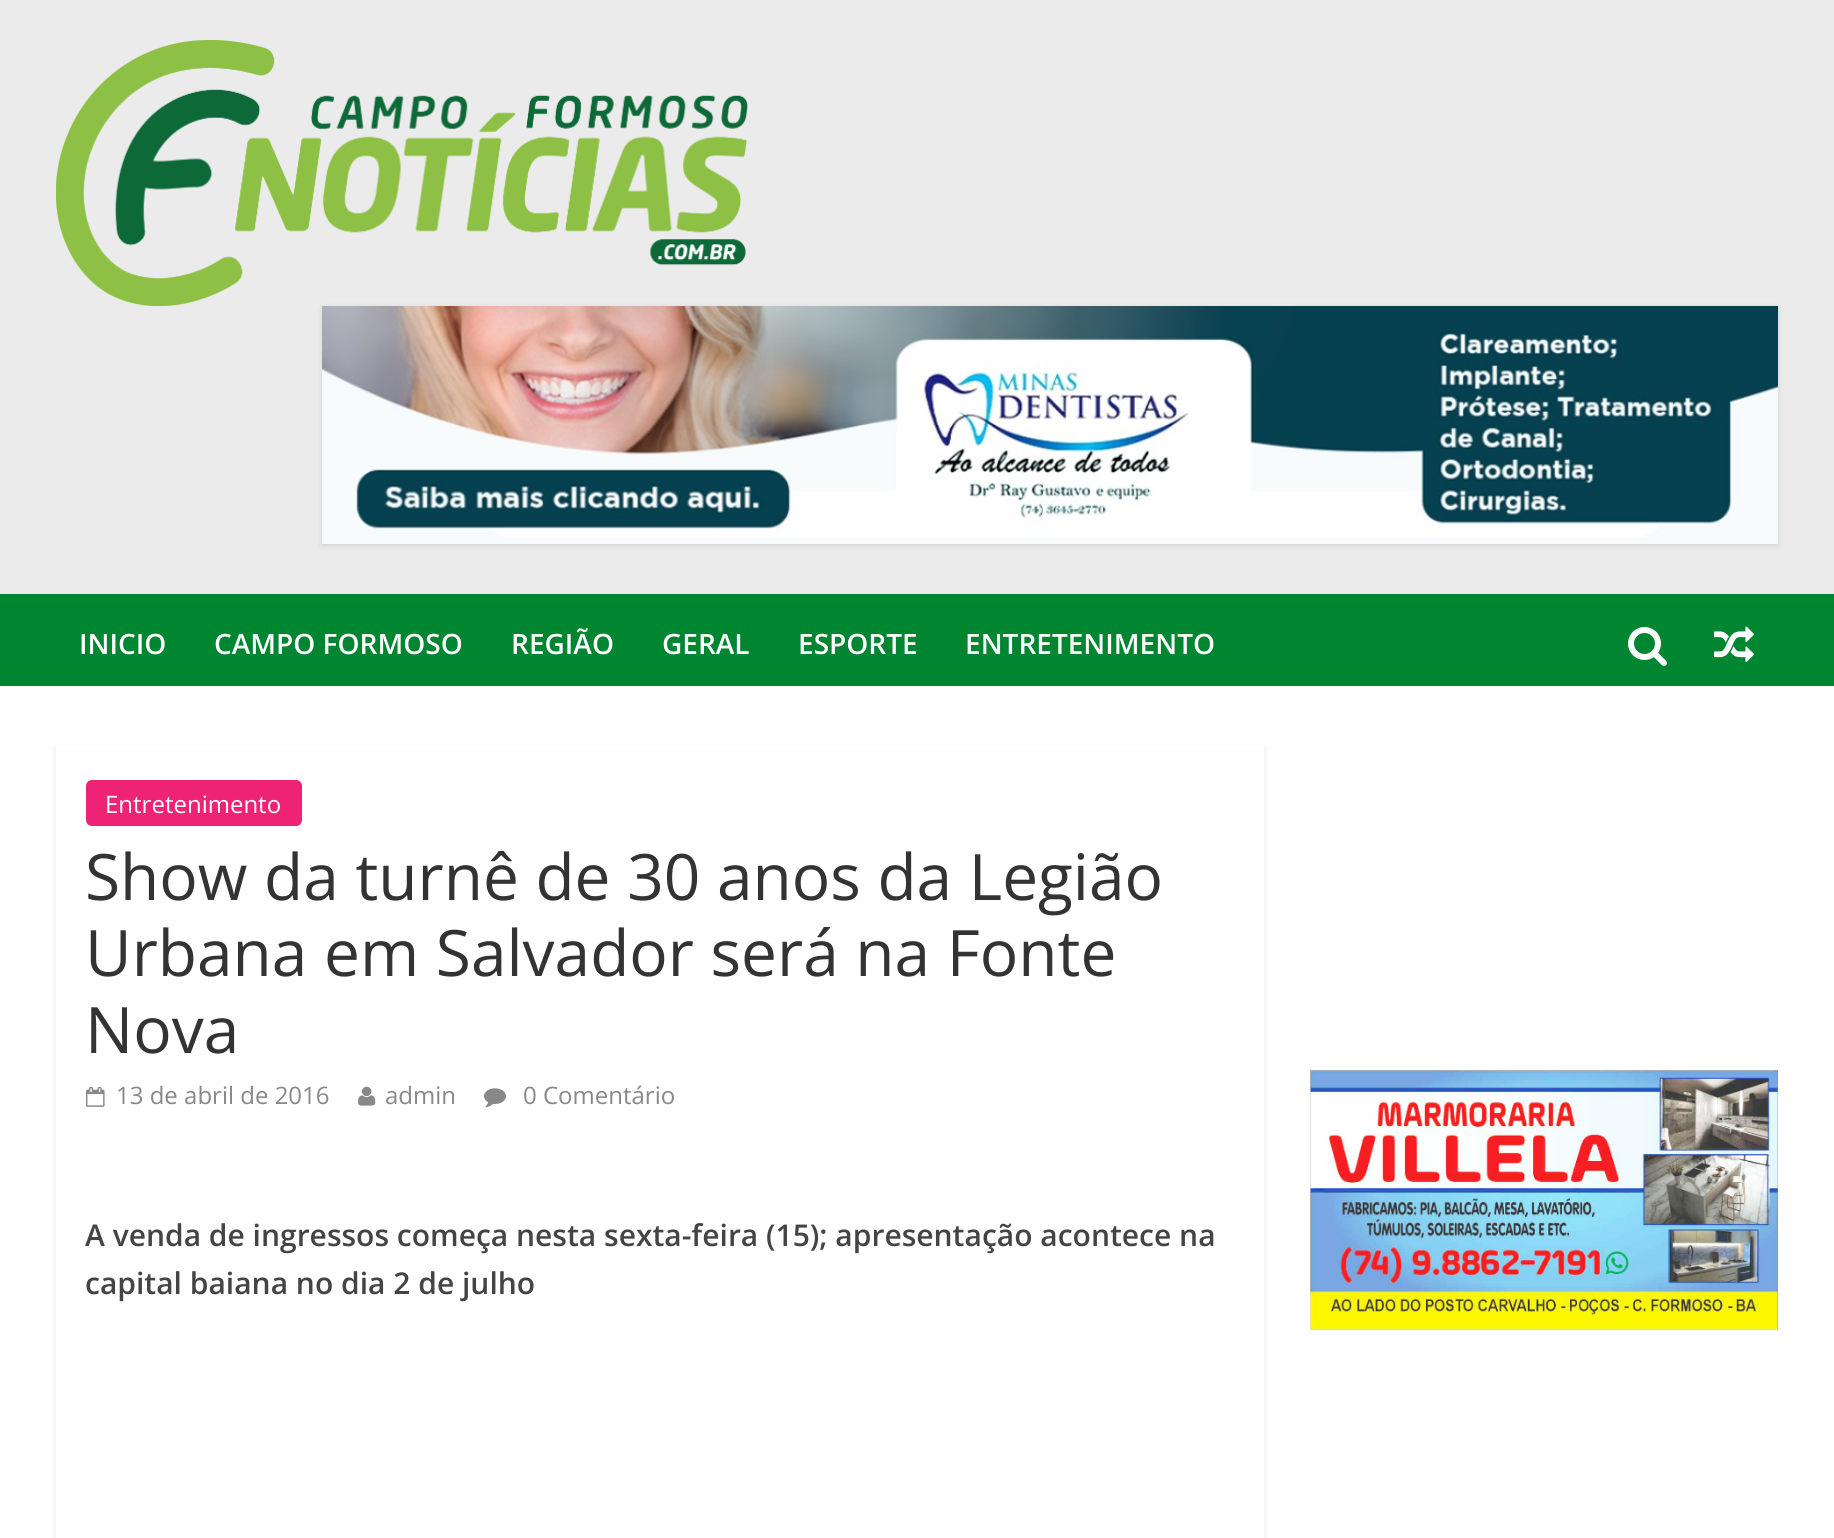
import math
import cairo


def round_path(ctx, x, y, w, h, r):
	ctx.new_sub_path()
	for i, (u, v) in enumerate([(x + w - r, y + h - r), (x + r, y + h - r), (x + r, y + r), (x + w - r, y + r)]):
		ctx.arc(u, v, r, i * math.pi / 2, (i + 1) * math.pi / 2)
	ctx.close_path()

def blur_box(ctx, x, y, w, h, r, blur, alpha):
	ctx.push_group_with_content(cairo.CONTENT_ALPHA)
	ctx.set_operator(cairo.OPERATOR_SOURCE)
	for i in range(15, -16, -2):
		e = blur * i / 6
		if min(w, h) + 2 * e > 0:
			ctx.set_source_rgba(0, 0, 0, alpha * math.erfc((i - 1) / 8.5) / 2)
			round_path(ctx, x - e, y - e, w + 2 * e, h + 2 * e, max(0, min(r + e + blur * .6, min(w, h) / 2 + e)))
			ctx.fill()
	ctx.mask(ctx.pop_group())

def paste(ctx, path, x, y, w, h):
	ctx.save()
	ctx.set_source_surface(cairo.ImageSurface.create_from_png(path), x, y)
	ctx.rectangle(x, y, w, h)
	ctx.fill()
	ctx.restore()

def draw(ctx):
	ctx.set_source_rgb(0.918, 0.918, 0.918)
	ctx.paint()
	paste(ctx, 'media/1.png', 56, 40, 692, 266)
	ctx.set_source_rgb(0, 0, 0)
	blur_box(ctx, 322, 308, 1456, 238, 0, 3, 0.1)
	paste(ctx, 'media/2.png', 322, 306, 1456, 238)
	ctx.set_source_rgb(0, 0.522, 0.188)
	ctx.rectangle(0, 594, 1834, 92)
	ctx.fill()
	ctx.select_font_face('Open Sans SemiBold')
	ctx.set_font_size(28)
	ctx.set_source_rgb(1, 1, 1)
	for x, y, s in [
		(79, 654, 'INICIO'),
		(214, 654, 'CAMPO FORMOSO'),
		(511, 654, 'REGIÃO'),
		(662, 654, 'GERAL'),
		(798, 654, 'ESPORTE'),
		(965, 654, 'ENTRETENIMENTO'),
	]:
		ctx.move_to(x, y)
		ctx.show_text(s)
	paste(ctx, 'media/3.png', 1628, 627, 39, 39)
	paste(ctx, 'media/4.png', 1714, 626, 40, 37)
	ctx.rectangle(0, 686, 1834, 852)
	ctx.fill()
	ctx.save()
	ctx.set_fill_rule(cairo.FILL_RULE_EVEN_ODD)
	ctx.new_path()
	ctx.move_to(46, 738)
	ctx.line_to(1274, 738)
	ctx.line_to(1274, 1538)
	ctx.line_to(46, 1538)
	ctx.close_path()
	ctx.move_to(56, 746)
	ctx.line_to(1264, 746)
	ctx.line_to(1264, 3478)
	ctx.line_to(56, 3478)
	ctx.close_path()
	ctx.clip()
	ctx.set_source_rgb(0, 0, 0)
	blur_box(ctx, 56, 748, 1208, 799, 0, 3, 0.1)
	ctx.restore()
	ctx.set_source_rgb(0.937, 0.137, 0.459)
	round_path(ctx, 86, 780, 216, 46, 6)
	ctx.fill()
	ctx.select_font_face('Open Sans')
	ctx.set_font_size(24)
	ctx.set_source_rgb(1, 1, 1)
	ctx.move_to(105, 813)
	ctx.show_text('Entretenimento')
	ctx.set_font_size(64)
	ctx.set_source_rgb(0.2, 0.2, 0.2)
	for x, y, s in [
		(85, 900, 'Show da turnê de 30 anos da Legião'),
		(85, 976, 'Urbana em Salvador será na Fonte'),
		(85, 1053, 'Nova'),
	]:
		ctx.move_to(x, y)
		ctx.show_text(s)
	paste(ctx, 'media/5.png', 86, 1086, 19, 21)
	ctx.set_font_size(24)
	ctx.set_source_rgb(0.533, 0.533, 0.533)
	ctx.move_to(116, 1104)
	ctx.show_text('13 de abril de 2016')
	paste(ctx, 'media/6.png', 358, 1086, 18, 20)
	ctx.move_to(385, 1104)
	ctx.show_text('admin')
	paste(ctx, 'media/7.png', 484, 1088, 22, 20)
	ctx.move_to(523, 1104)
	ctx.show_text('0 Comentário')
	ctx.select_font_face('Open Sans SemiBold')
	ctx.set_font_size(30)
	ctx.set_source_rgb(0.267, 0.267, 0.267)
	ctx.move_to(85, 1246)
	ctx.show_text('A venda de ingressos começa nesta sexta-feira (15); apresentação acontece na')
	ctx.move_to(85, 1294)
	ctx.show_text('capital baiana no dia 2 de julho')
	paste(ctx, 'media/8.png', 1310, 1070, 468, 260)


surface = cairo.ImageSurface(cairo.FORMAT_RGB24, 1834, 1538)
ctx = cairo.Context(surface)
options = cairo.FontOptions()
options.set_hint_metrics(cairo.HINT_METRICS_OFF)
options.set_hint_style(cairo.HINT_STYLE_NONE)
ctx.set_font_options(options)
ctx.set_miter_limit(4)
draw(ctx)
surface.write_to_png('image.png')
